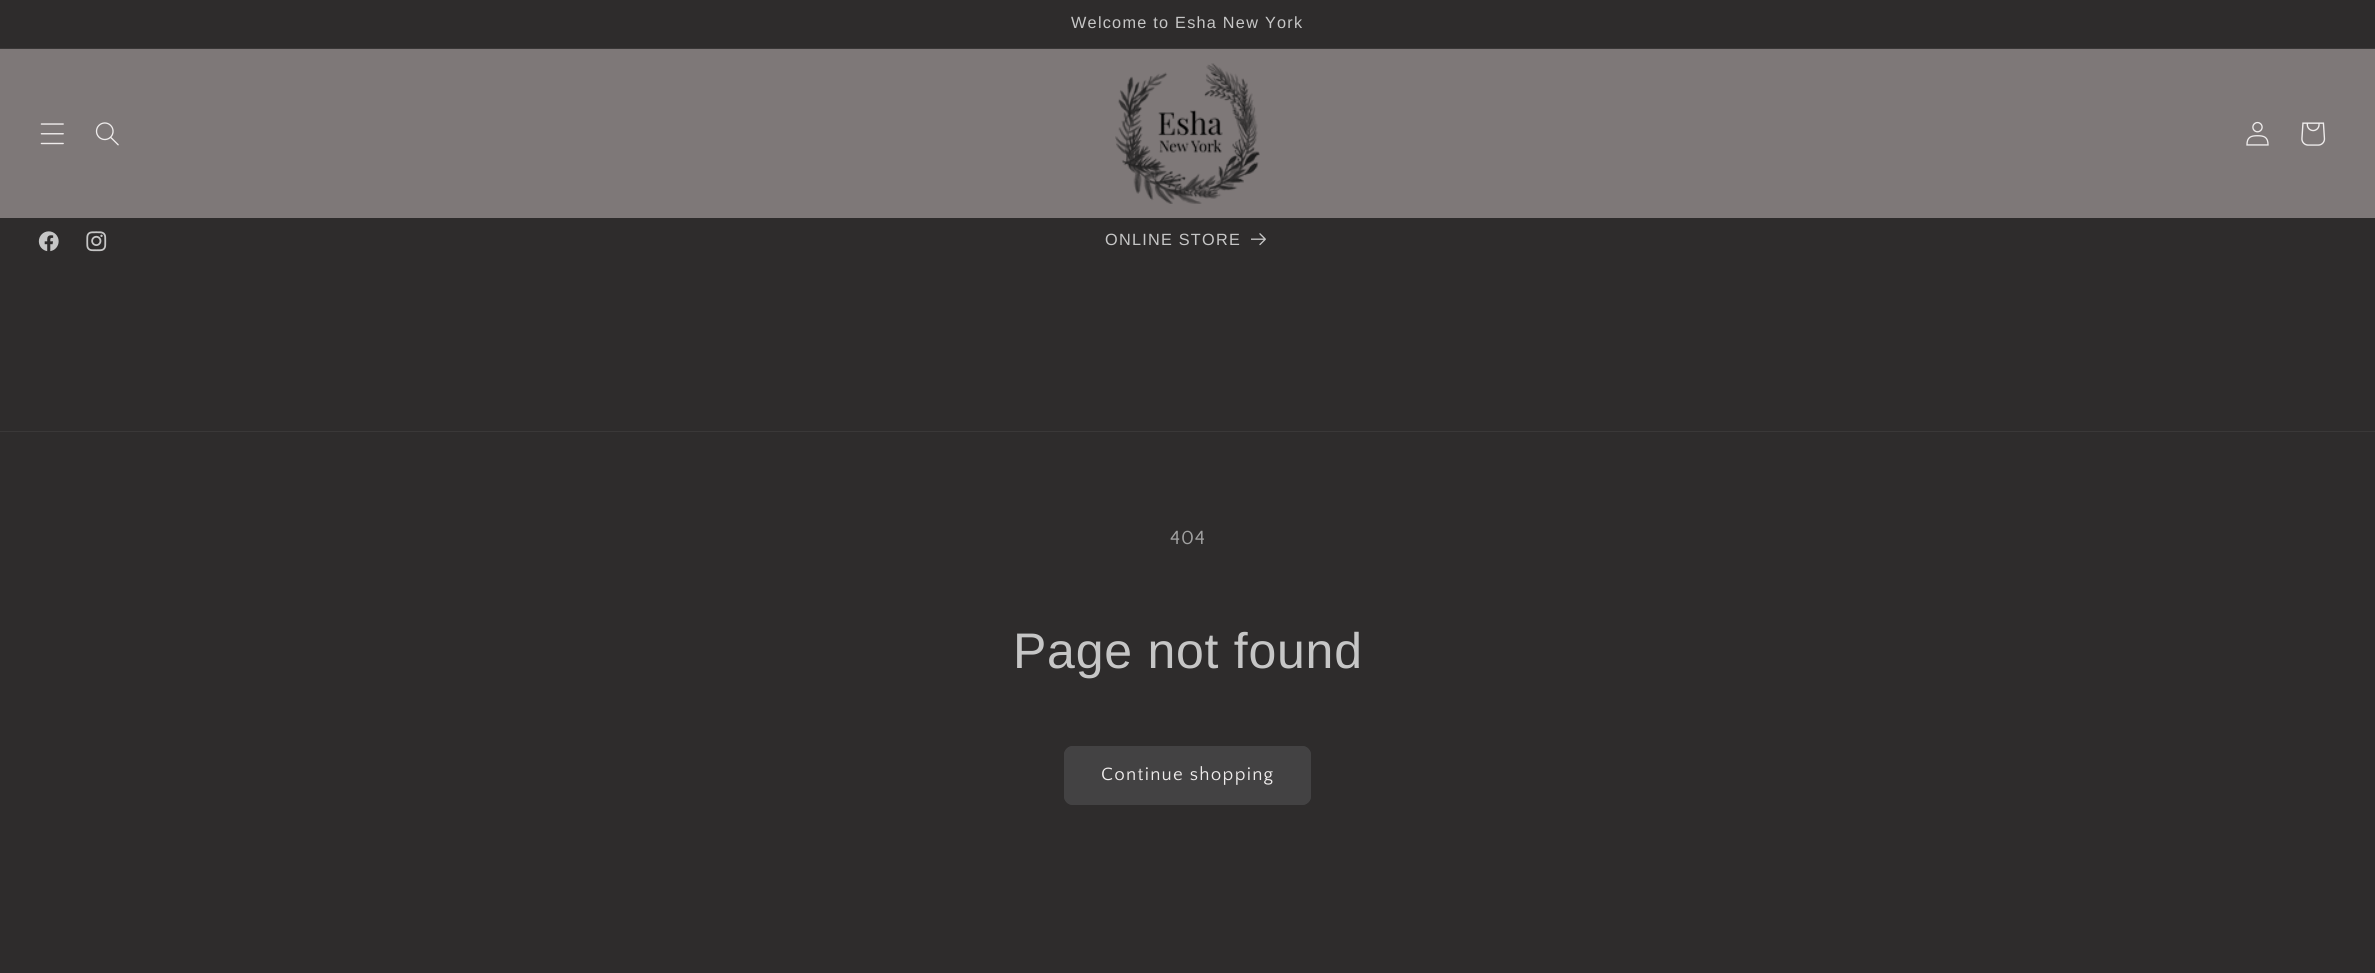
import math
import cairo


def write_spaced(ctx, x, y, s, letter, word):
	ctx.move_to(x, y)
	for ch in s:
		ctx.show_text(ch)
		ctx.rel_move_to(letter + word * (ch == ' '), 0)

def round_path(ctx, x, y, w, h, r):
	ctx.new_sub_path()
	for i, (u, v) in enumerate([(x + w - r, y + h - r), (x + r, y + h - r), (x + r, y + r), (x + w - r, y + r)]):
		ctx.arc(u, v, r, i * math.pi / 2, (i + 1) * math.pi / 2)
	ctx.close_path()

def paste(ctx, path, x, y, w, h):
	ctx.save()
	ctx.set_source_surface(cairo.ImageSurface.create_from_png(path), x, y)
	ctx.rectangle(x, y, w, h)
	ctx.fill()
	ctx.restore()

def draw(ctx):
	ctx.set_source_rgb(0.18, 0.173, 0.173)
	ctx.paint()
	ctx.set_source_rgb(0.227, 0.22, 0.22)
	ctx.rectangle(0, 48, 2375, 1)
	ctx.fill()
	ctx.select_font_face('Arimo')
	ctx.set_font_size(16.25)
	ctx.set_source_rgb(0.776, 0.776, 0.776)
	write_spaced(ctx, 1071, 28, 'Welcome to Esha New York', 1.25, 0)
	ctx.set_source_rgb(0.494, 0.471, 0.471)
	ctx.rectangle(0, 49, 2375, 169)
	ctx.fill()
	paste(ctx, 'media/1.png', 40, 123, 24, 22)
	paste(ctx, 'media/2.png', 95, 122, 24, 24)
	paste(ctx, 'media/3.png', 1115, 63, 145, 141)
	paste(ctx, 'media/4.png', 2246, 121, 23, 25)
	paste(ctx, 'media/5.png', 2301, 122, 25, 24)
	ctx.set_source_rgb(0.227, 0.22, 0.22)
	ctx.rectangle(0, 431, 2375, 1)
	ctx.fill()
	paste(ctx, 'media/6.png', 38, 231, 21, 21)
	paste(ctx, 'media/7.png', 86, 231, 21, 21)
	ctx.set_source_rgb(0.776, 0.776, 0.776)
	write_spaced(ctx, 1105, 245, 'ONLINE STORE', 1.25, 0)
	paste(ctx, 'media/8.png', 1251, 233, 15, 13)
	ctx.select_font_face('Quattrocento Sans')
	ctx.set_font_size(20)
	ctx.set_source_rgb(0.627, 0.627, 0.627)
	write_spaced(ctx, 1170, 544, '404', 0.75, 0)
	ctx.select_font_face('Arimo')
	ctx.set_font_size(50)
	ctx.set_source_rgb(0.776, 0.776, 0.776)
	write_spaced(ctx, 1013, 668, 'Page not found', 0.75, 0)
	ctx.set_source_rgb(0.263, 0.259, 0.263)
	round_path(ctx, 1064, 746, 247, 59, 9)
	ctx.fill()
	round_path(ctx, 1064.5, 746.5, 246, 58, 8.5)
	ctx.set_line_width(1)
	ctx.stroke()
	ctx.select_font_face('Quattrocento Sans')
	ctx.set_font_size(18.75)
	ctx.set_source_rgb(0.937, 0.925, 0.925)
	write_spaced(ctx, 1101, 780, 'Continue shopping', 1.25, 0)


surface = cairo.ImageSurface(cairo.FORMAT_RGB24, 2375, 973)
ctx = cairo.Context(surface)
options = cairo.FontOptions()
options.set_hint_metrics(cairo.HINT_METRICS_OFF)
options.set_hint_style(cairo.HINT_STYLE_NONE)
ctx.set_font_options(options)
ctx.set_miter_limit(4)
draw(ctx)
surface.write_to_png('image.png')
